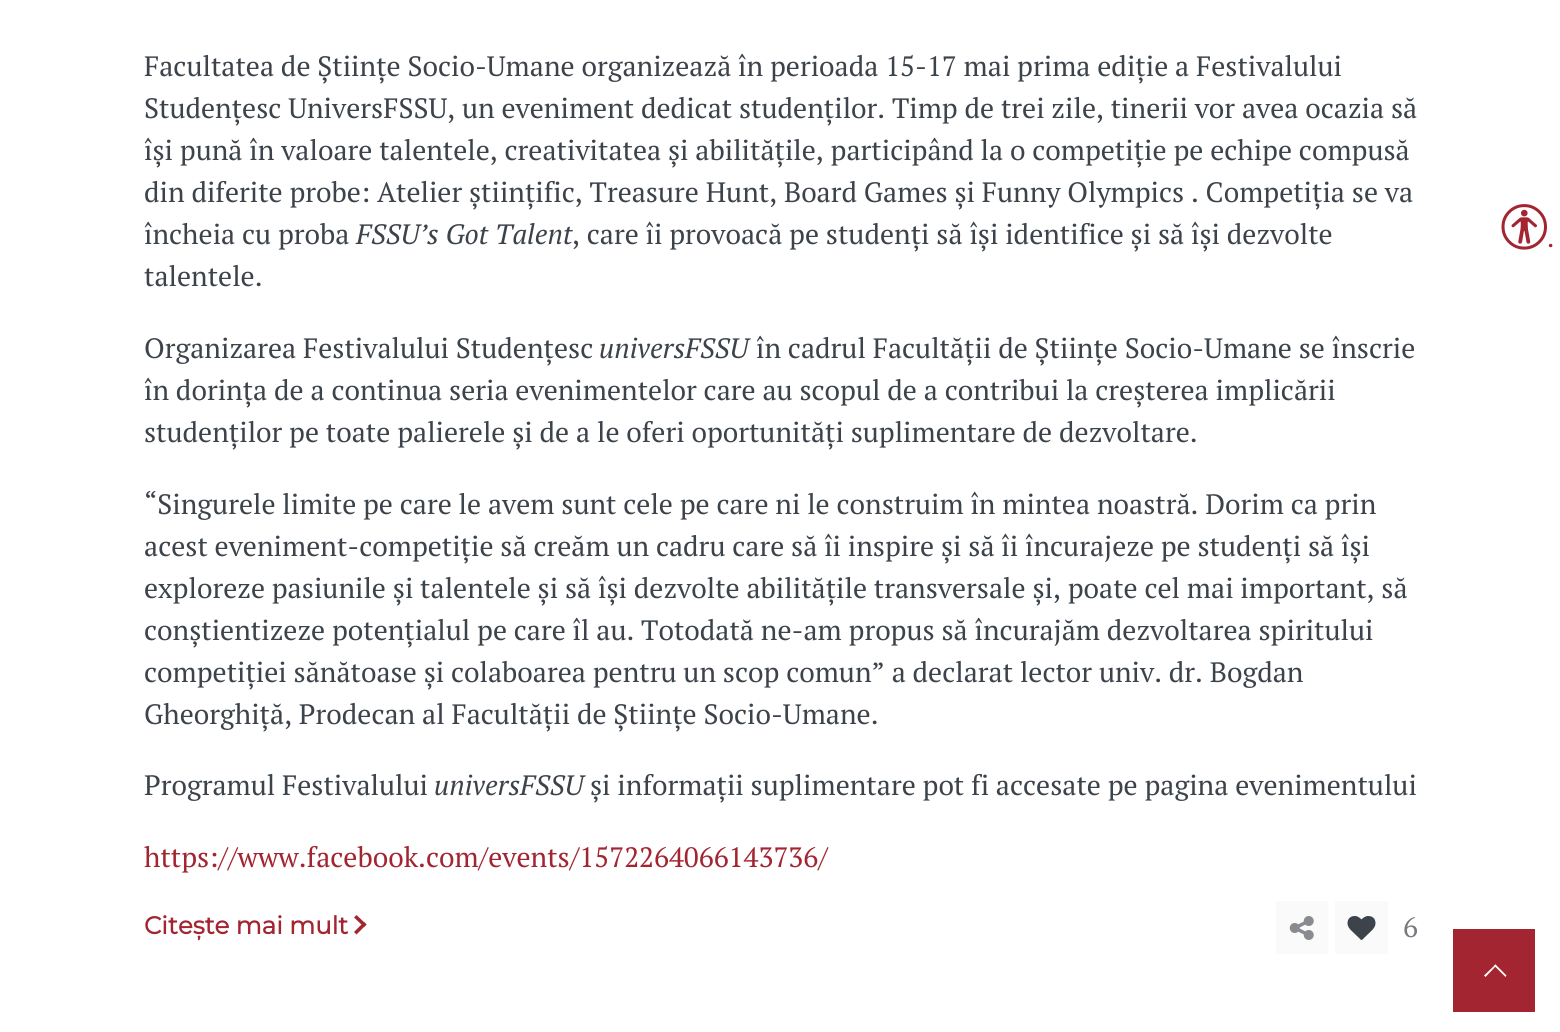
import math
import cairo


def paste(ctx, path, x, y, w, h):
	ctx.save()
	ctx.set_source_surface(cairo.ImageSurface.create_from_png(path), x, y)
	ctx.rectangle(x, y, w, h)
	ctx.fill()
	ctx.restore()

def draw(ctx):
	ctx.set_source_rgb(1, 1, 1)
	ctx.paint()
	ctx.select_font_face('PT Serif')
	ctx.set_font_size(28)
	ctx.set_source_rgb(0.235, 0.263, 0.294)
	for x, y, s in [
		(144, 76, 'Facultatea de Științe Socio-Umane organizează în perioada 15-17 mai prima ediție a Festivalului'),
		(144, 118, 'Studențesc UniversFSSU, un eveniment dedicat studenților. Timp de trei zile, tinerii vor avea ocazia să'),
		(144, 160, 'își pună în valoare talentele, creativitatea și abilitățile, participând la o competiție pe echipe compusă'),
		(144, 202, 'din diferite probe: Atelier științific, Treasure Hunt, Board Games și Funny Olympics . Competiția se va'),
		(144, 244, 'încheia cu proba'),
	]:
		ctx.move_to(x, y)
		ctx.show_text(s)
	ctx.select_font_face('PT Serif', cairo.FONT_SLANT_ITALIC)
	ctx.move_to(356, 244)
	ctx.show_text('FSSU’s Got Talent')
	ctx.select_font_face('PT Serif')
	for x, y, s in [
		(572, 244, ', care îi provoacă pe studenți să își identifice și să își dezvolte'),
		(144, 286, 'talentele.'),
		(144, 358, 'Organizarea Festivalului Studențesc'),
	]:
		ctx.move_to(x, y)
		ctx.show_text(s)
	ctx.select_font_face('PT Serif', cairo.FONT_SLANT_ITALIC)
	ctx.move_to(599, 358)
	ctx.show_text('universFSSU')
	ctx.select_font_face('PT Serif')
	for x, y, s in [
		(756, 358, 'în cadrul Facultății de Științe Socio-Umane se înscrie'),
		(144, 400, 'în dorința de a continua seria evenimentelor care au scopul de a contribui la creșterea implicării'),
		(144, 442, 'studenților pe toate palierele și de a le oferi oportunități suplimentare de dezvoltare.'),
		(144, 514, '“Singurele limite pe care le avem sunt cele pe care ni le construim în mintea noastră. Dorim ca prin'),
		(144, 556, 'acest eveniment-competiție să creăm un cadru care să îi inspire și să îi încurajeze pe studenți să își'),
		(144, 598, 'exploreze pasiunile și talentele și să își dezvolte abilitățile transversale și, poate cel mai important, să'),
		(144, 640, 'conștientizeze potențialul pe care îl au. Totodată ne-am propus să încurajăm dezvoltarea spiritului'),
		(144, 682, 'competiției sănătoase și colaboarea pentru un scop comun” a declarat lector univ. dr. Bogdan'),
		(144, 724, 'Gheorghiță, Prodecan al Facultății de Științe Socio-Umane.'),
		(144, 795, 'Programul Festivalului'),
	]:
		ctx.move_to(x, y)
		ctx.show_text(s)
	ctx.select_font_face('PT Serif', cairo.FONT_SLANT_ITALIC)
	ctx.move_to(434, 795)
	ctx.show_text('universFSSU')
	ctx.select_font_face('PT Serif')
	ctx.move_to(590, 795)
	ctx.show_text('și informații suplimentare pot fi accesate pe pagina evenimentului')
	ctx.set_source_rgb(0.635, 0.145, 0.192)
	ctx.move_to(144, 867)
	ctx.show_text('https://www.facebook.com/events/1572264066143736/')
	ctx.select_font_face('Montserrat', cairo.FONT_SLANT_NORMAL, cairo.FONT_WEIGHT_BOLD)
	ctx.set_font_size(24.5)
	ctx.move_to(144, 934)
	ctx.show_text('Citește mai mult')
	ctx.new_path()
	ctx.move_to(354, 917.5)
	ctx.line_to(356.5, 915)
	ctx.line_to(366.5, 924.5)
	ctx.line_to(364, 927)
	ctx.close_path()
	ctx.fill()
	ctx.new_path()
	ctx.move_to(354, 932)
	ctx.line_to(364, 922)
	ctx.line_to(366.5, 924.5)
	ctx.line_to(356.5, 934.5)
	ctx.close_path()
	ctx.fill()
	ctx.set_source_rgb(0.98, 0.98, 0.98)
	ctx.rectangle(1276, 901, 52, 53)
	ctx.fill()
	paste(ctx, 'media/1.png', 1289, 916, 25, 24)
	ctx.rectangle(1335, 901, 53, 53)
	ctx.fill()
	paste(ctx, 'media/2.png', 1347, 916, 29, 24)
	ctx.select_font_face('PT Serif')
	ctx.set_font_size(28)
	ctx.set_source_rgb(0.467, 0.482, 0.506)
	ctx.move_to(1403, 937)
	ctx.show_text('6')
	paste(ctx, 'media/3.png', 1501, 204, 46, 46)
	ctx.set_font_size(26)
	ctx.set_source_rgb(0.635, 0.145, 0.192)
	ctx.move_to(1547, 247)
	ctx.show_text('.')
	ctx.rectangle(1453, 929, 82, 83)
	ctx.fill()
	ctx.set_source_rgb(1, 1, 1)
	ctx.new_path()
	ctx.move_to(1496.5, 965.5)
	ctx.line_to(1485.5, 977)
	ctx.line_to(1484, 975.5)
	ctx.line_to(1495.5, 964.5)
	ctx.close_path()
	ctx.fill()
	ctx.new_path()
	ctx.move_to(1506.5, 975.5)
	ctx.line_to(1505.5, 977)
	ctx.line_to(1494, 965.5)
	ctx.line_to(1495.5, 964.5)
	ctx.close_path()
	ctx.fill()


surface = cairo.ImageSurface(cairo.FORMAT_RGB24, 1560, 1032)
ctx = cairo.Context(surface)
options = cairo.FontOptions()
options.set_hint_metrics(cairo.HINT_METRICS_OFF)
options.set_hint_style(cairo.HINT_STYLE_NONE)
ctx.set_font_options(options)
ctx.set_miter_limit(4)
draw(ctx)
surface.write_to_png('image.png')
